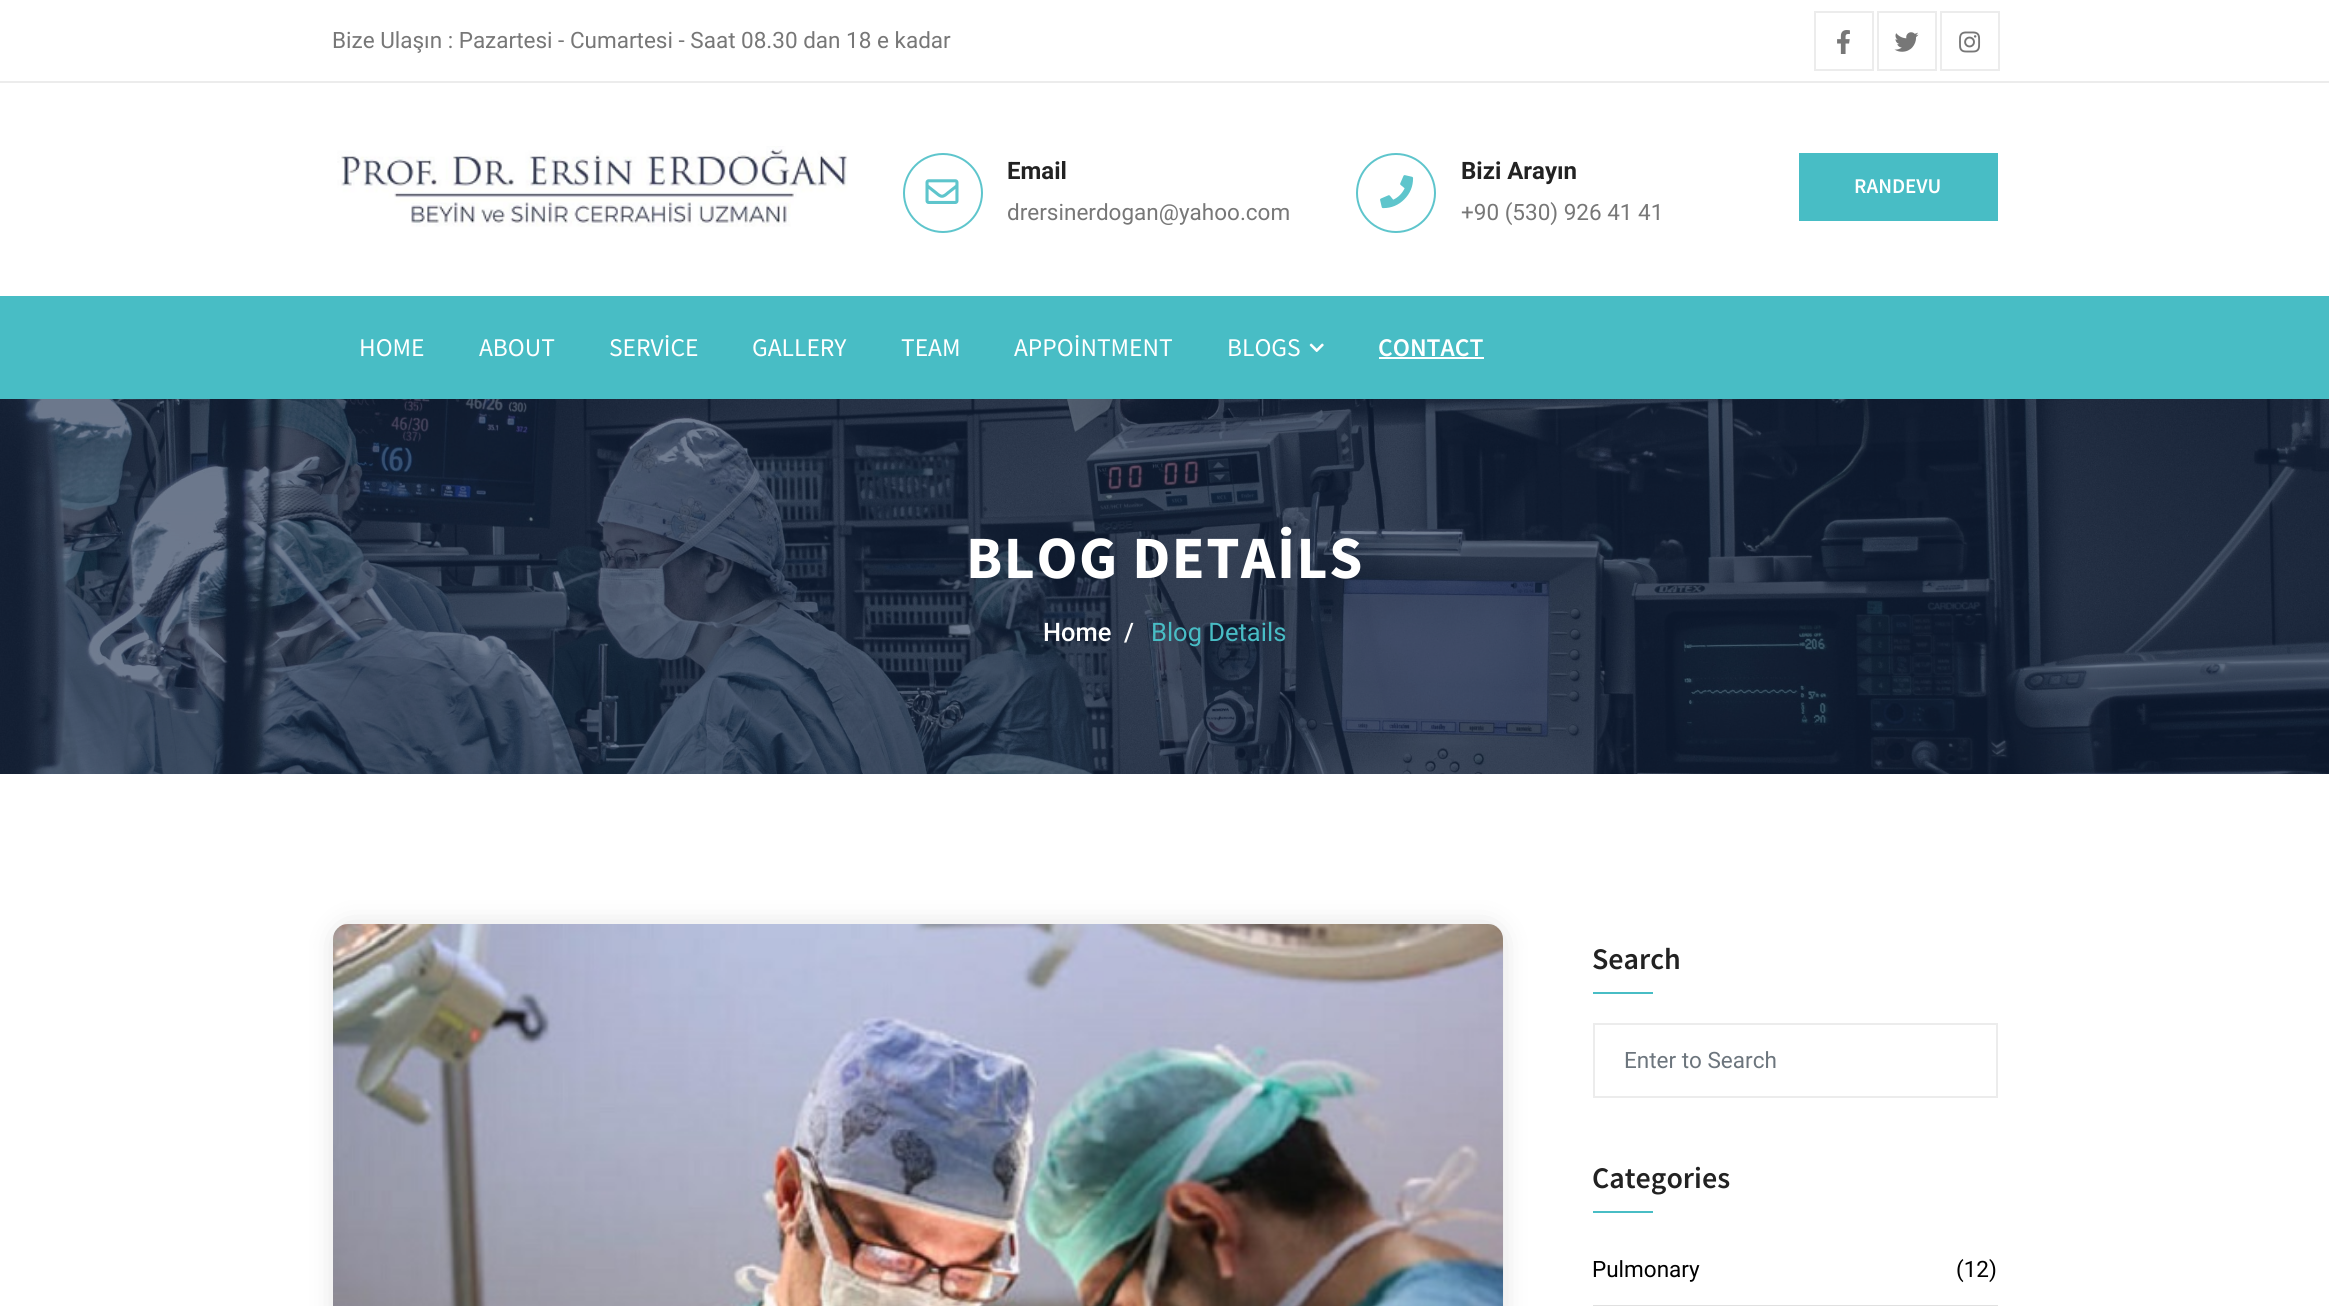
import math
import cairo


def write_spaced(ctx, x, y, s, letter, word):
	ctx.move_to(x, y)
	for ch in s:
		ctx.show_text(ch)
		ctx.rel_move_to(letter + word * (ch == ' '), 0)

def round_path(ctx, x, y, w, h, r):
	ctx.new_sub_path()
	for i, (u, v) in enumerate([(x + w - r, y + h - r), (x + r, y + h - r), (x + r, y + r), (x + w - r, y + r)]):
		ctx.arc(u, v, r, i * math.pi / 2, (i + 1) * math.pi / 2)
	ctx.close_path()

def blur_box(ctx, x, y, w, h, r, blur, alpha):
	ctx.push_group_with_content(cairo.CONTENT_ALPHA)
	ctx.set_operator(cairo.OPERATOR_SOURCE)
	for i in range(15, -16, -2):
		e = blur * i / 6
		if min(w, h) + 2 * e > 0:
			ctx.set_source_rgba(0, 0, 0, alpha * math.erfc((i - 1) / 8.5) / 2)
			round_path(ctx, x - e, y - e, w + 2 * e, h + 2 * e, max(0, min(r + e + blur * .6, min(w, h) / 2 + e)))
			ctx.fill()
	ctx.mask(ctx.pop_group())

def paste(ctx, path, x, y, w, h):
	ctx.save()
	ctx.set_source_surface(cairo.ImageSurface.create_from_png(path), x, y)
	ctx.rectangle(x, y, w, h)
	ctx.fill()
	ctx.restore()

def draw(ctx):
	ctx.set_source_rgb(1, 1, 1)
	ctx.paint()
	ctx.set_source_rgb(0.925, 0.925, 0.925)
	ctx.rectangle(0, 81, 2329, 2)
	ctx.fill()
	ctx.select_font_face('Roboto')
	ctx.set_font_size(22.5)
	ctx.set_source_rgb(0.467, 0.467, 0.467)
	ctx.move_to(332, 48)
	ctx.show_text('Bize Ulaşın : Pazartesi - Cumartesi - Saat 08.30 dan 18 e kadar')
	ctx.rectangle(1815, 12, 58, 58)
	ctx.set_source_rgb(0.925, 0.925, 0.925)
	ctx.stroke()
	paste(ctx, 'media/1.png', 1837, 30, 13, 24)
	ctx.rectangle(1878, 12, 58, 58)
	ctx.stroke()
	paste(ctx, 'media/2.png', 1894, 32, 25, 20)
	ctx.rectangle(1941, 12, 58, 58)
	ctx.stroke()
	paste(ctx, 'media/3.png', 1959, 31, 22, 22)
	paste(ctx, 'media/4.png', 337, 146, 511, 81)
	ctx.arc(943, 193, 39, 0, 2 * math.pi)
	ctx.set_source_rgb(0.369, 0.773, 0.8)
	ctx.stroke()
	paste(ctx, 'media/5.png', 925, 179, 34, 25)
	ctx.select_font_face('Roboto', cairo.FONT_SLANT_NORMAL, cairo.FONT_WEIGHT_BOLD)
	ctx.set_font_size(24)
	ctx.set_source_rgb(0.133, 0.133, 0.133)
	ctx.move_to(1007, 179)
	ctx.show_text('Email')
	ctx.select_font_face('Roboto')
	ctx.set_font_size(22.5)
	ctx.set_source_rgb(0.467, 0.467, 0.467)
	ctx.move_to(1007, 220)
	ctx.show_text('drersinerdogan@yahoo.com')
	ctx.new_path()
	ctx.arc(1396, 193, 39, 0, 2 * math.pi)
	ctx.set_source_rgb(0.369, 0.773, 0.8)
	ctx.stroke()
	paste(ctx, 'media/6.png', 1380, 175, 34, 34)
	ctx.select_font_face('Roboto', cairo.FONT_SLANT_NORMAL, cairo.FONT_WEIGHT_BOLD)
	ctx.set_font_size(24)
	ctx.set_source_rgb(0.133, 0.133, 0.133)
	ctx.move_to(1461, 179)
	ctx.show_text('Bizi Arayın')
	ctx.select_font_face('Roboto')
	ctx.set_font_size(22.5)
	ctx.set_source_rgb(0.467, 0.467, 0.467)
	ctx.move_to(1461, 220)
	ctx.show_text('+90 (530) 926 41 41')
	ctx.set_source_rgb(0.282, 0.741, 0.773)
	ctx.rectangle(1799, 153, 199, 68)
	ctx.fill()
	ctx.select_font_face('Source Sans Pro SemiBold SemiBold')
	ctx.set_font_size(21)
	ctx.set_source_rgb(1, 1, 1)
	ctx.move_to(1854, 193)
	ctx.show_text('RANDEVU')
	ctx.set_source_rgb(0.282, 0.741, 0.773)
	ctx.rectangle(0, 296, 2329, 103)
	ctx.fill()
	ctx.select_font_face('Source Sans Pro')
	ctx.set_font_size(25.5)
	ctx.set_source_rgb(1, 1, 1)
	for x, y, s in [
		(359, 356, 'HOME'),
		(479, 356, 'ABOUT'),
		(609, 356, 'SERVİCE'),
		(752, 356, 'GALLERY'),
		(901, 356, 'TEAM'),
		(1014, 356, 'APPOİNTMENT'),
		(1227, 356, 'BLOGS'),
	]:
		ctx.move_to(x, y)
		ctx.show_text(s)
	paste(ctx, 'media/7.png', 1309, 343, 15, 9)
	ctx.select_font_face('Source Sans Pro SemiBold SemiBold')
	ctx.move_to(1378, 356)
	ctx.show_text('CONTACT')
	ctx.rectangle(1379, 357, 105, 2)
	ctx.fill()
	paste(ctx, 'media/8.png', 0, 399, 2329, 375)
	ctx.select_font_face('Source Sans Pro', cairo.FONT_SLANT_NORMAL, cairo.FONT_WEIGHT_BOLD)
	ctx.set_font_size(60)
	write_spaced(ctx, 966, 578, 'BLOG DETAİLS', 1.5, 0)
	ctx.select_font_face('Roboto Medium')
	ctx.set_font_size(25.5)
	ctx.move_to(1043, 641)
	ctx.show_text('Home  /')
	ctx.select_font_face('Roboto')
	ctx.set_source_rgb(0.282, 0.741, 0.773)
	ctx.move_to(1151, 641)
	ctx.show_text('Blog Details')
	ctx.set_source_rgb(0, 0, 0)
	blur_box(ctx, 341, 932, 1155, 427, 8, 15, 0.2)
	paste(ctx, 'media/9.png', 333, 924, 1170, 382)
	ctx.select_font_face('Source Sans Pro SemiBold SemiBold')
	ctx.set_font_size(30)
	ctx.set_source_rgb(0.133, 0.133, 0.133)
	ctx.move_to(1592, 969)
	ctx.show_text('Search')
	ctx.set_source_rgb(0.282, 0.741, 0.773)
	ctx.rectangle(1593, 992, 60, 2)
	ctx.fill()
	ctx.rectangle(1594, 1024, 403, 73)
	ctx.set_source_rgb(0.925, 0.925, 0.925)
	ctx.stroke()
	ctx.select_font_face('Roboto')
	ctx.set_font_size(22.5)
	ctx.set_source_rgb(0.424, 0.459, 0.49)
	ctx.move_to(1624, 1068)
	ctx.show_text('Enter to Search')
	ctx.select_font_face('Source Sans Pro SemiBold SemiBold')
	ctx.set_font_size(30)
	ctx.set_source_rgb(0.133, 0.133, 0.133)
	ctx.move_to(1592, 1188)
	ctx.show_text('Categories')
	ctx.set_source_rgb(0.282, 0.741, 0.773)
	ctx.rectangle(1593, 1211, 60, 2)
	ctx.fill()
	ctx.set_source_rgb(0.878, 0.878, 0.878)
	ctx.rectangle(1593, 1305, 405, 1)
	ctx.fill()
	ctx.select_font_face('Roboto')
	ctx.set_font_size(22.5)
	ctx.set_source_rgb(0, 0, 0)
	ctx.move_to(1592, 1277)
	ctx.show_text('Pulmonary')
	ctx.move_to(1956, 1277)
	ctx.show_text('(12)')


surface = cairo.ImageSurface(cairo.FORMAT_RGB24, 2329, 1306)
ctx = cairo.Context(surface)
options = cairo.FontOptions()
options.set_hint_metrics(cairo.HINT_METRICS_OFF)
options.set_hint_style(cairo.HINT_STYLE_NONE)
ctx.set_font_options(options)
ctx.set_miter_limit(4)
draw(ctx)
surface.write_to_png('image.png')
